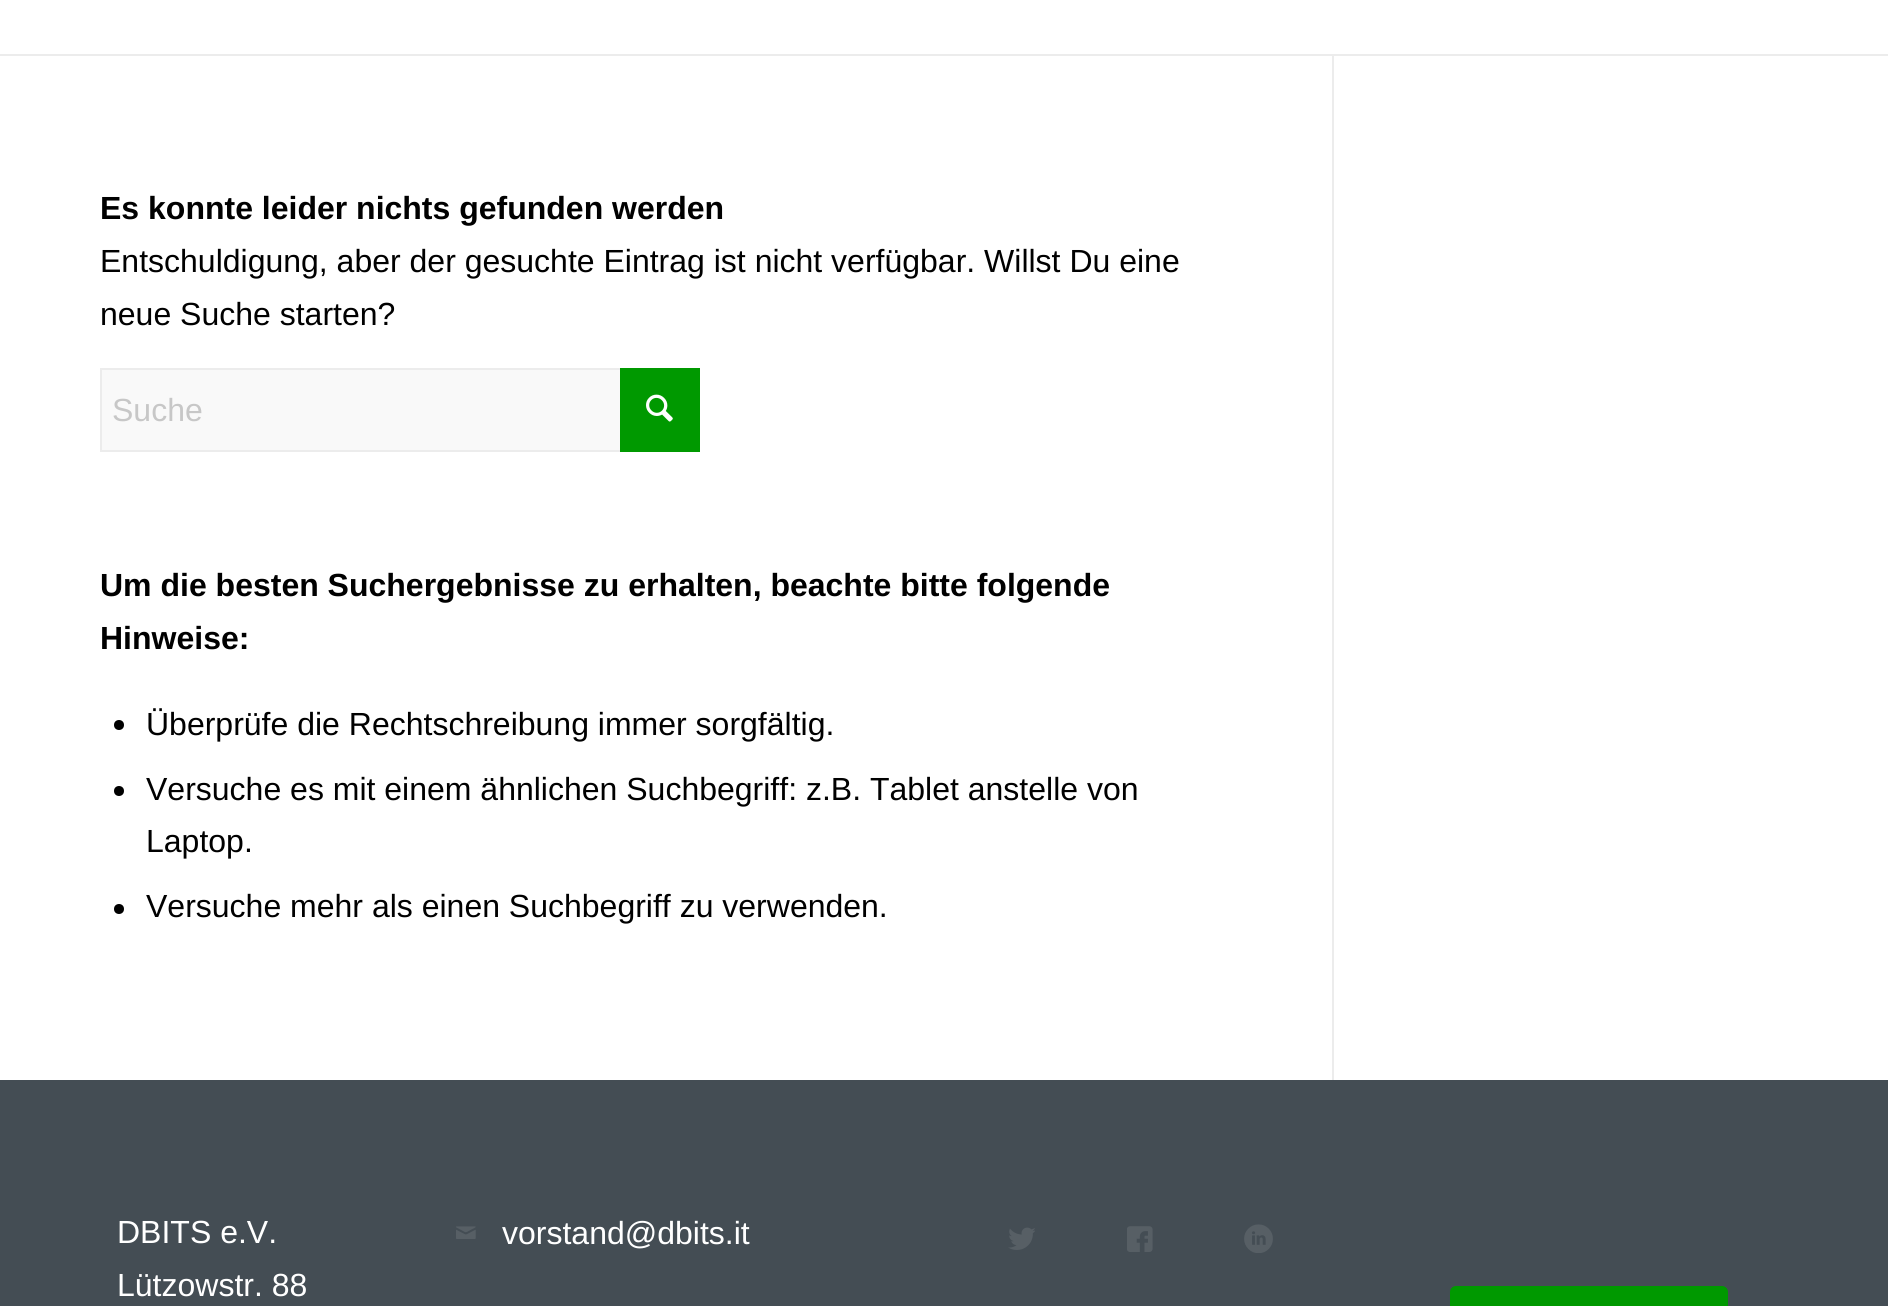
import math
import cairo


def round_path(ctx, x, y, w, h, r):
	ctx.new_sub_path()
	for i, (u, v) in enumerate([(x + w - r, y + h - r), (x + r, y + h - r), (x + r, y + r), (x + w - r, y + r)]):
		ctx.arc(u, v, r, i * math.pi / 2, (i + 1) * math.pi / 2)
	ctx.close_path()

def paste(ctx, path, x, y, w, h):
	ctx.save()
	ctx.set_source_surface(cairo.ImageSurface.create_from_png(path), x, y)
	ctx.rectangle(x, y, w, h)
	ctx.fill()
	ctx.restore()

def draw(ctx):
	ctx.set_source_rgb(1, 1, 1)
	ctx.paint()
	ctx.set_source_rgb(0.922, 0.922, 0.922)
	ctx.rectangle(0, 54, 1888, 2)
	ctx.fill()
	ctx.rectangle(1332, 56, 2, 1024)
	ctx.fill()
	ctx.select_font_face('Liberation Sans', cairo.FONT_SLANT_NORMAL, cairo.FONT_WEIGHT_BOLD)
	ctx.set_font_size(32)
	ctx.set_source_rgb(0, 0, 0)
	ctx.move_to(100, 219)
	ctx.show_text('Es konnte leider nichts gefunden werden')
	ctx.select_font_face('Liberation Sans')
	ctx.move_to(100, 272)
	ctx.show_text('Entschuldigung, aber der gesuchte Eintrag ist nicht verfügbar. Willst Du eine')
	ctx.move_to(100, 325)
	ctx.show_text('neue Suche starten?')
	ctx.set_source_rgb(0.973, 0.973, 0.973)
	ctx.rectangle(102, 370, 518, 80)
	ctx.fill()
	ctx.rectangle(101, 369, 598, 82)
	ctx.set_source_rgb(0.922, 0.922, 0.922)
	ctx.stroke()
	ctx.set_source_rgb(0.78, 0.78, 0.78)
	ctx.move_to(112, 421)
	ctx.show_text('Suche')
	ctx.set_source_rgb(0, 0.6, 0)
	ctx.rectangle(620, 368, 80, 84)
	ctx.fill()
	paste(ctx, 'media/1.png', 646, 394, 27, 28)
	ctx.select_font_face('Liberation Sans', cairo.FONT_SLANT_NORMAL, cairo.FONT_WEIGHT_BOLD)
	ctx.set_source_rgb(0, 0, 0)
	ctx.move_to(100, 596)
	ctx.show_text('Um die besten Suchergebnisse zu erhalten, beachte bitte folgende')
	ctx.move_to(100, 649)
	ctx.show_text('Hinweise:')
	ctx.new_path()
	ctx.arc(119, 725, 5, 0, 2 * math.pi)
	ctx.fill()
	ctx.select_font_face('Liberation Sans')
	ctx.move_to(146, 735)
	ctx.show_text('Überprüfe die Rechtschreibung immer sorgfältig.')
	ctx.new_path()
	ctx.arc(119, 791, 5, 0, 2 * math.pi)
	ctx.fill()
	ctx.move_to(146, 800)
	ctx.show_text('Versuche es mit einem ähnlichen Suchbegriff: z.B. Tablet anstelle von')
	ctx.move_to(146, 852)
	ctx.show_text('Laptop.')
	ctx.new_path()
	ctx.arc(119, 909, 5, 0, 2 * math.pi)
	ctx.fill()
	ctx.move_to(146, 917)
	ctx.show_text('Versuche mehr als einen Suchbegriff zu verwenden.')
	ctx.set_source_rgb(0.267, 0.302, 0.329)
	ctx.rectangle(0, 1080, 1888, 226)
	ctx.fill()
	ctx.set_source_rgb(1, 1, 1)
	ctx.move_to(117, 1243)
	ctx.show_text('DBITS e.V.')
	ctx.move_to(117, 1296)
	ctx.show_text('Lützowstr. 88')
	paste(ctx, 'media/2.png', 456, 1226, 20, 13)
	ctx.move_to(502, 1244)
	ctx.show_text('vorstand@dbits.it')
	paste(ctx, 'media/3.png', 1008, 1227, 27, 23)
	paste(ctx, 'media/4.png', 1127, 1226, 26, 26)
	paste(ctx, 'media/5.png', 1244, 1224, 29, 29)
	ctx.set_source_rgb(0, 0.6, 0)
	round_path(ctx, 1450, 1286, 278, 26, 6)
	ctx.fill()


surface = cairo.ImageSurface(cairo.FORMAT_RGB24, 1888, 1306)
ctx = cairo.Context(surface)
options = cairo.FontOptions()
options.set_hint_metrics(cairo.HINT_METRICS_OFF)
options.set_hint_style(cairo.HINT_STYLE_NONE)
ctx.set_font_options(options)
ctx.set_miter_limit(4)
draw(ctx)
surface.write_to_png('image.png')
